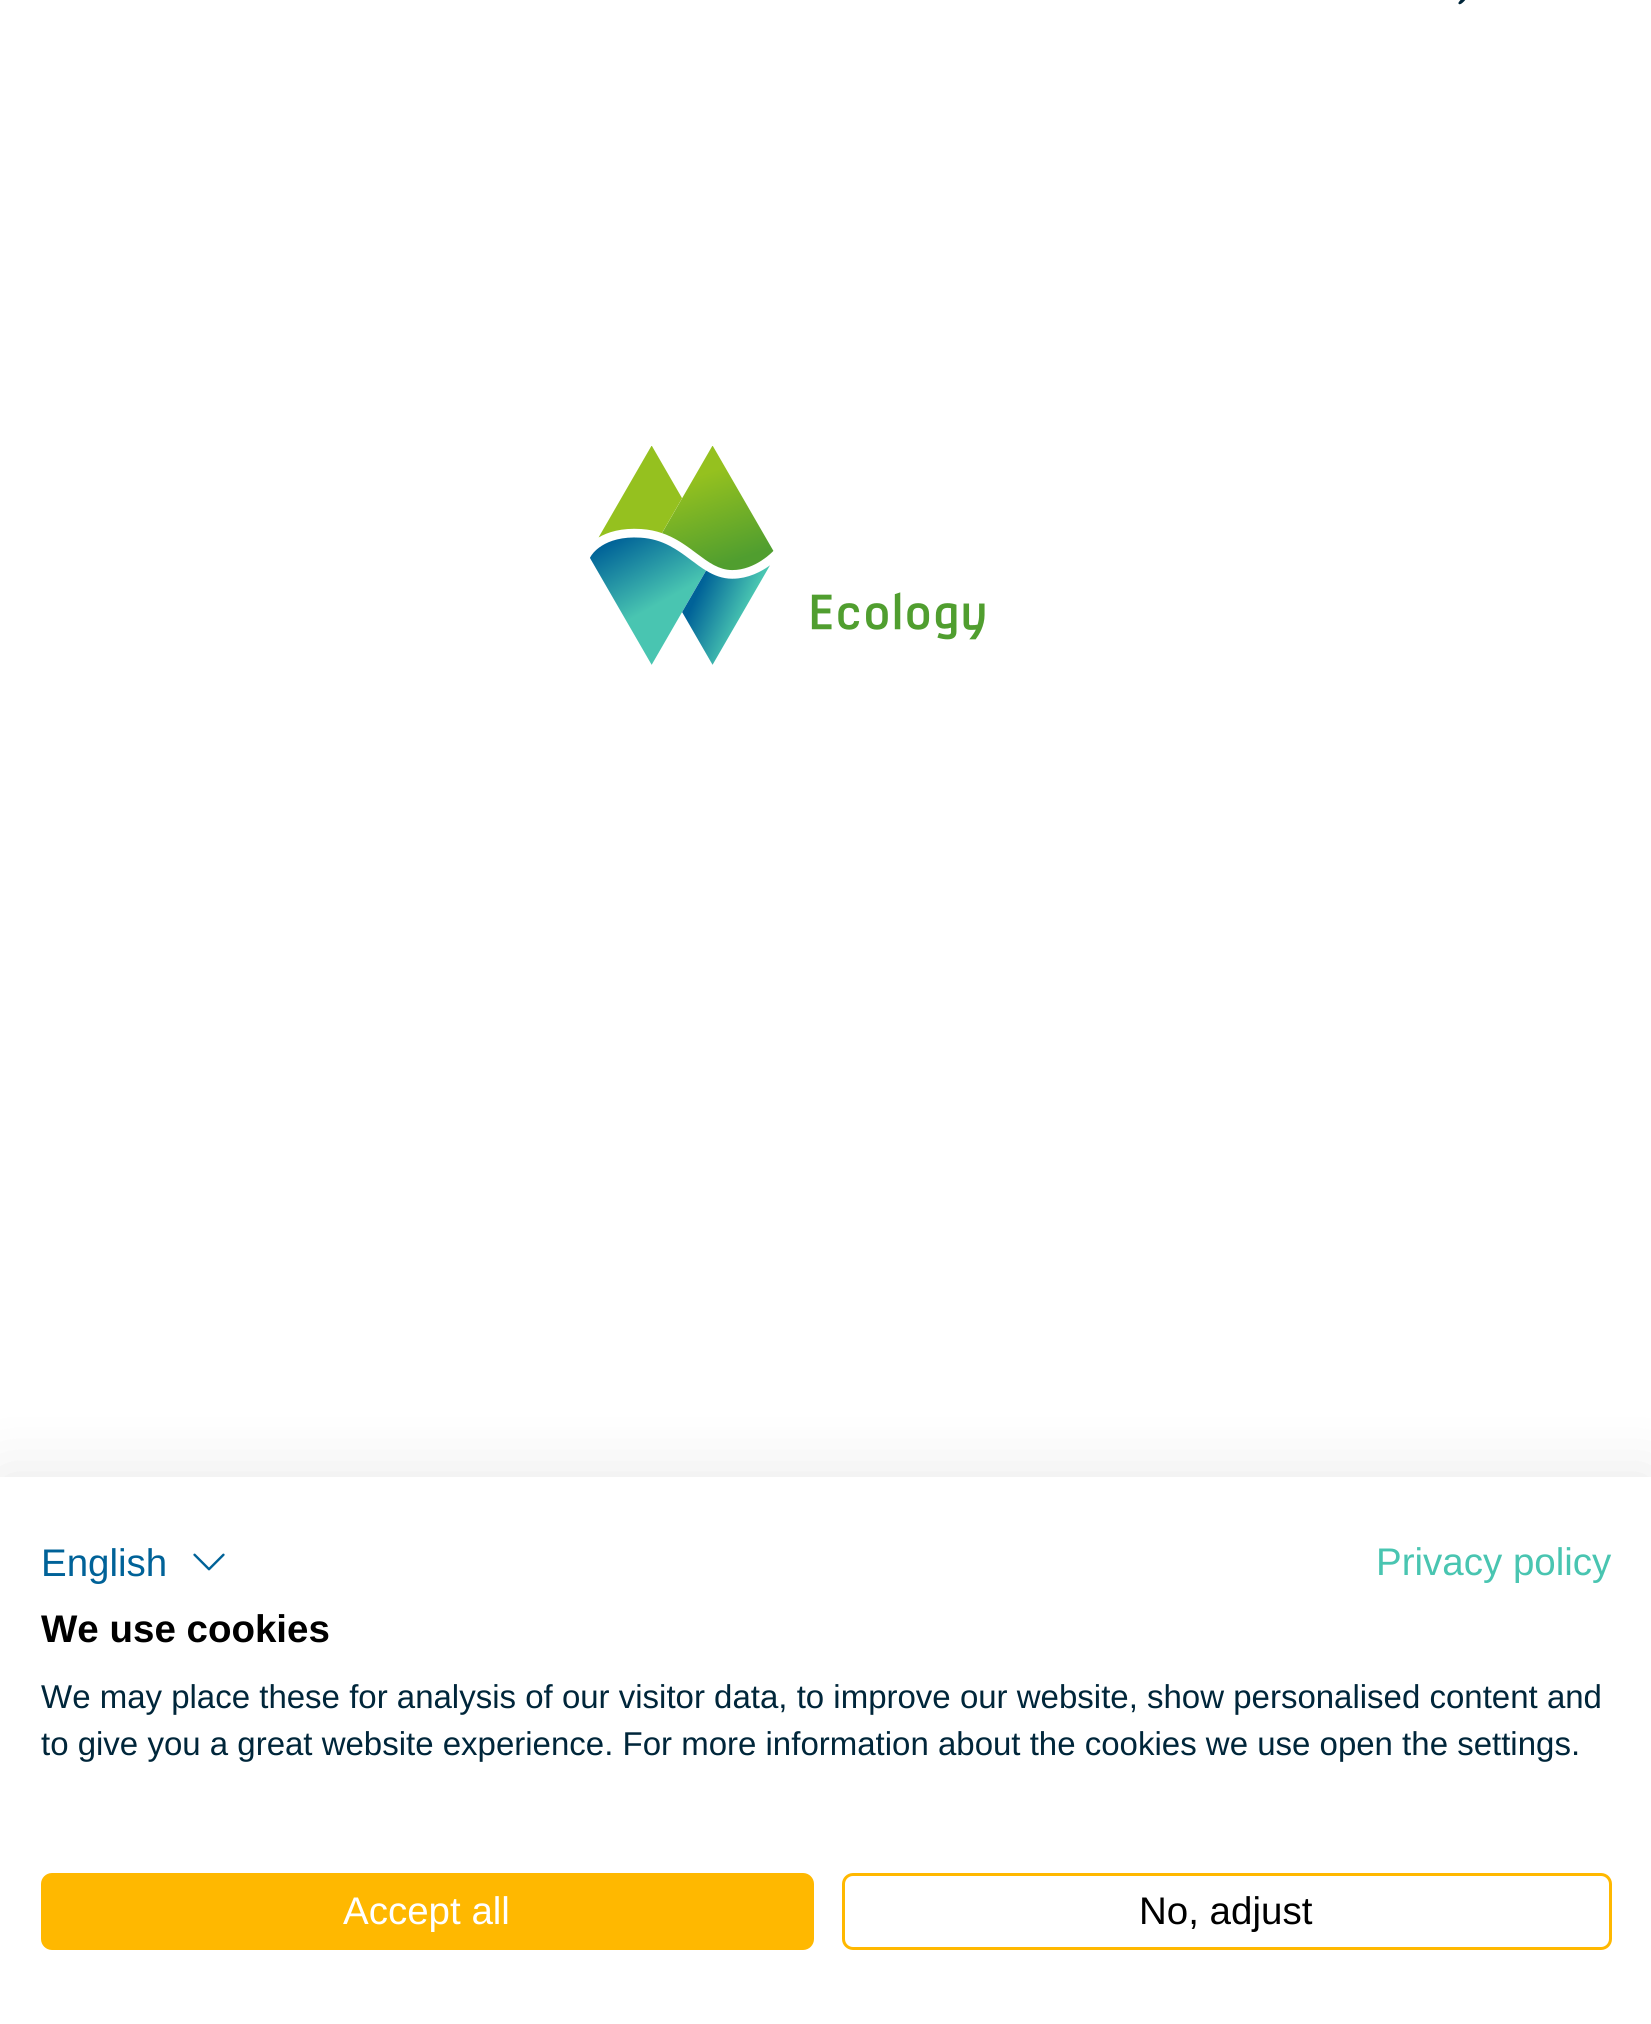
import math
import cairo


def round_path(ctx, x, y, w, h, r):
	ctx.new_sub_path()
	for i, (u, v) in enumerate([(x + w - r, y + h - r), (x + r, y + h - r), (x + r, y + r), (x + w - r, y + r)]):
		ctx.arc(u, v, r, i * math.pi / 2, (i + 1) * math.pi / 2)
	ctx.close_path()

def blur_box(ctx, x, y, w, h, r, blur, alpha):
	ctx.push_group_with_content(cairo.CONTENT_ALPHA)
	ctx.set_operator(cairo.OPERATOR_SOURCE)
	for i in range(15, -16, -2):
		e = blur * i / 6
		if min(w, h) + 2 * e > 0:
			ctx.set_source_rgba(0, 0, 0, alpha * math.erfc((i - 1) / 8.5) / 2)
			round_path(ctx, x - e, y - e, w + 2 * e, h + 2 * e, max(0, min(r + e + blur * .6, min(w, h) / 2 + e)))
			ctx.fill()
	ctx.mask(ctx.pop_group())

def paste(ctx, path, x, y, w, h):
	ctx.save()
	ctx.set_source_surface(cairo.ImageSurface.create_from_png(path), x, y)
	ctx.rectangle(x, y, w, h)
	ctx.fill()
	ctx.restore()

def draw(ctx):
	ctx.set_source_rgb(1, 1, 1)
	ctx.paint()
	ctx.set_source_rgb(0, 0.149, 0.227)
	ctx.new_path()
	ctx.move_to(1469, -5)
	ctx.curve_to(1471, -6, 1466, -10, 1465, -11)
	ctx.curve_to(1464, -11, 1460, -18, 1458, -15)
	ctx.curve_to(1458, -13, 1461, -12, 1461, -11)
	ctx.line_to(1467, -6)
	ctx.curve_to(1465, -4, 1456, 3, 1459, 4)
	ctx.curve_to(1461, 6, 1468, -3, 1469, -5)
	ctx.close_path()
	ctx.move_to(1402, -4)
	ctx.line_to(1468, -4)
	ctx.line_to(1468, -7)
	ctx.line_to(1402, -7)
	ctx.close_path()
	ctx.fill()
	paste(ctx, 'media/1.png', 590, 446, 395, 219)
	ctx.set_source_rgb(0, 0, 0)
	blur_box(ctx, 0, 1477, 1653, 547, 0, 33, 0.1)
	ctx.set_source_rgb(1, 1, 1)
	ctx.rectangle(0, 1477, 1651, 547)
	ctx.fill()
	ctx.select_font_face('Liberation Sans')
	ctx.set_font_size(38.5)
	ctx.set_source_rgb(0, 0.384, 0.596)
	ctx.move_to(41, 1576)
	ctx.show_text('English')
	paste(ctx, 'media/2.png', 193, 1553, 32, 18)
	ctx.set_source_rgb(0.286, 0.773, 0.694)
	ctx.move_to(1376, 1575)
	ctx.show_text('Privacy policy')
	ctx.select_font_face('Liberation Sans', cairo.FONT_SLANT_NORMAL, cairo.FONT_WEIGHT_BOLD)
	ctx.set_source_rgb(0, 0, 0)
	ctx.move_to(41, 1642)
	ctx.show_text('We use cookies')
	ctx.select_font_face('Liberation Sans')
	ctx.set_font_size(33)
	ctx.set_source_rgb(0, 0.149, 0.227)
	ctx.move_to(41, 1708)
	ctx.show_text('We may place these for analysis of our visitor data, to improve our website, show personalised content and')
	ctx.move_to(41, 1755)
	ctx.show_text('to give you a great website experience. For more information about the cookies we use open the settings.')
	ctx.set_source_rgb(1, 0.722, 0)
	round_path(ctx, 42.5, 1874.5, 770, 74, 9.5)
	ctx.fill_preserve()
	ctx.set_line_width(3)
	ctx.stroke()
	ctx.set_font_size(38.5)
	ctx.set_source_rgb(1, 1, 1)
	ctx.move_to(343, 1924)
	ctx.show_text('Accept all')
	round_path(ctx, 843.5, 1874.5, 767, 74, 9.5)
	ctx.set_source_rgb(1, 0.722, 0)
	ctx.stroke()
	ctx.set_source_rgb(0, 0, 0)
	ctx.move_to(1139, 1924)
	ctx.show_text('No, adjust')


surface = cairo.ImageSurface(cairo.FORMAT_RGB24, 1651, 2024)
ctx = cairo.Context(surface)
options = cairo.FontOptions()
options.set_hint_metrics(cairo.HINT_METRICS_OFF)
options.set_hint_style(cairo.HINT_STYLE_NONE)
ctx.set_font_options(options)
ctx.set_miter_limit(4)
draw(ctx)
surface.write_to_png('image.png')
